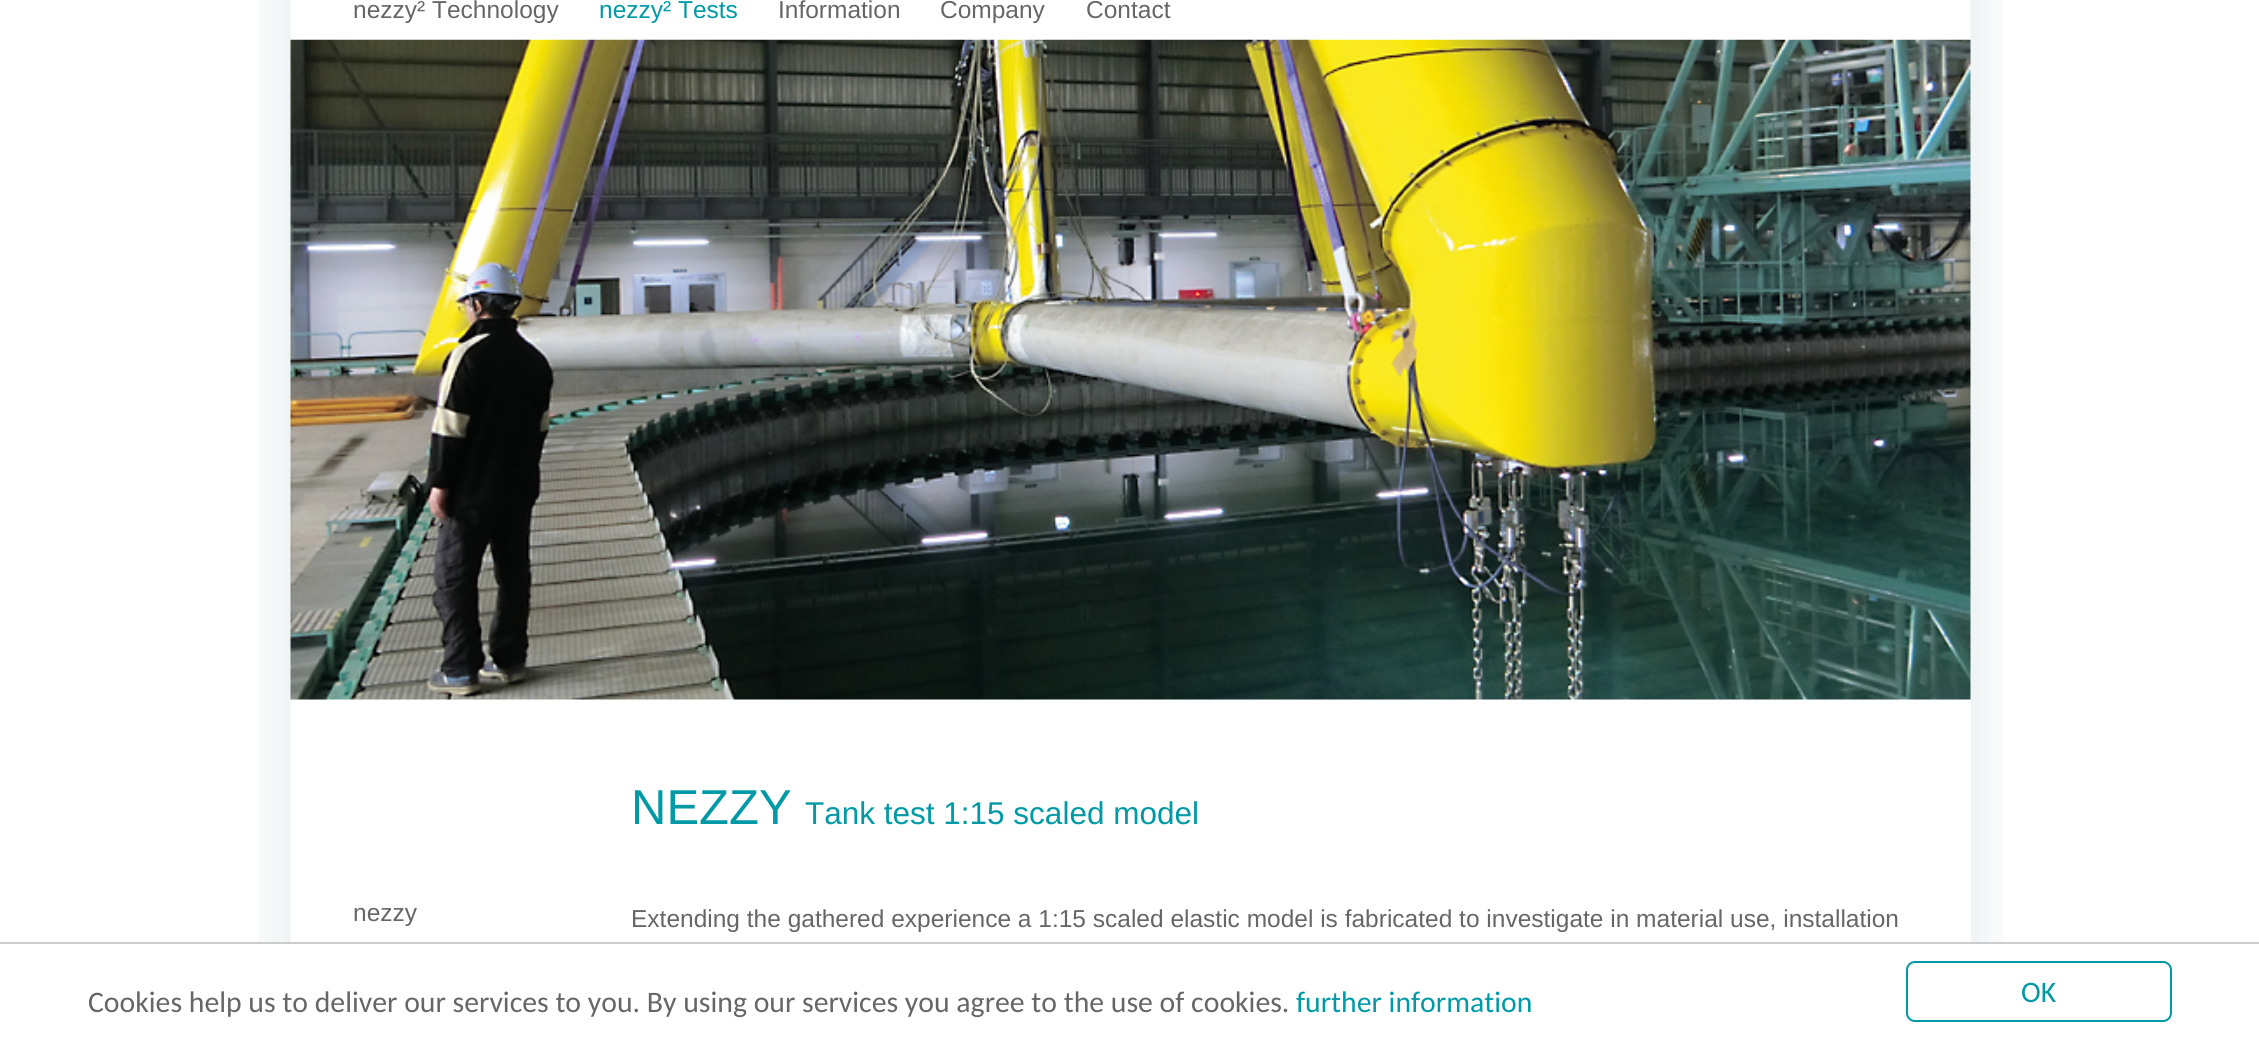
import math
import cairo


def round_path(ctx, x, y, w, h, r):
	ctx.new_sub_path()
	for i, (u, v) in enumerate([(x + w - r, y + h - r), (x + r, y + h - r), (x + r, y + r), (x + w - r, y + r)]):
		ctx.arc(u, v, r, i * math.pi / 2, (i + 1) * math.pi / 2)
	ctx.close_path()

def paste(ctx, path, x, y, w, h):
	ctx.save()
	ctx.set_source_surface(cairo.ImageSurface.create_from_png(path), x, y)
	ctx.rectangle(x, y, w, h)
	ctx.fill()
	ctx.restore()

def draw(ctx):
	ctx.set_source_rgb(1, 1, 1)
	ctx.paint()
	paste(ctx, 'media/1.png', 258, 0, 1745, 942)
	ctx.select_font_face('Liberation Sans')
	ctx.set_font_size(24.5)
	ctx.set_source_rgb(0.4, 0.4, 0.4)
	ctx.move_to(353, 18)
	ctx.show_text('nezzy² Technology')
	ctx.set_source_rgb(0, 0.6, 0.651)
	ctx.move_to(599, 18)
	ctx.show_text('nezzy² Tests')
	ctx.set_source_rgb(0.4, 0.4, 0.4)
	for x, y, s in [
		(778, 18, 'Information'),
		(940, 18, 'Company'),
		(1086, 18, 'Contact'),
	]:
		ctx.move_to(x, y)
		ctx.show_text(s)
	paste(ctx, 'media/2.png', 290, 39, 1681, 661)
	ctx.set_source_rgb(1, 1, 1)
	ctx.rectangle(1970, 700, 1, 242)
	ctx.fill()
	ctx.set_source_rgb(0.4, 0.4, 0.4)
	ctx.move_to(353, 921)
	ctx.show_text('nezzy')
	ctx.set_font_size(49)
	ctx.set_source_rgb(0, 0.6, 0.651)
	ctx.move_to(631, 824)
	ctx.show_text('NEZZY')
	ctx.set_font_size(31.5)
	ctx.move_to(805, 824)
	ctx.show_text('Tank test 1:15 scaled model')
	ctx.set_font_size(24.5)
	ctx.set_source_rgb(0.4, 0.4, 0.4)
	ctx.move_to(631, 927)
	ctx.show_text('Extending the gathered experience a 1:15 scaled elastic model is fabricated to investigate in material use, installation')
	ctx.set_source_rgb(0.8, 0.8, 0.8)
	ctx.rectangle(0, 942, 2259, 2)
	ctx.fill()
	ctx.select_font_face('Carlito')
	ctx.set_font_size(29.75)
	ctx.set_source_rgb(0.4, 0.4, 0.4)
	ctx.move_to(88, 1012)
	ctx.show_text('Cookies help us to deliver our services to you. By using our services you agree to the use of cookies.')
	ctx.set_source_rgb(0, 0.6, 0.651)
	ctx.move_to(1296, 1012)
	ctx.show_text('further information')
	round_path(ctx, 1907, 962, 264, 59, 8)
	ctx.stroke()
	ctx.move_to(2021, 1002)
	ctx.show_text('OK')


surface = cairo.ImageSurface(cairo.FORMAT_RGB24, 2259, 1043)
ctx = cairo.Context(surface)
options = cairo.FontOptions()
options.set_hint_metrics(cairo.HINT_METRICS_OFF)
options.set_hint_style(cairo.HINT_STYLE_NONE)
ctx.set_font_options(options)
ctx.set_miter_limit(4)
draw(ctx)
surface.write_to_png('image.png')
